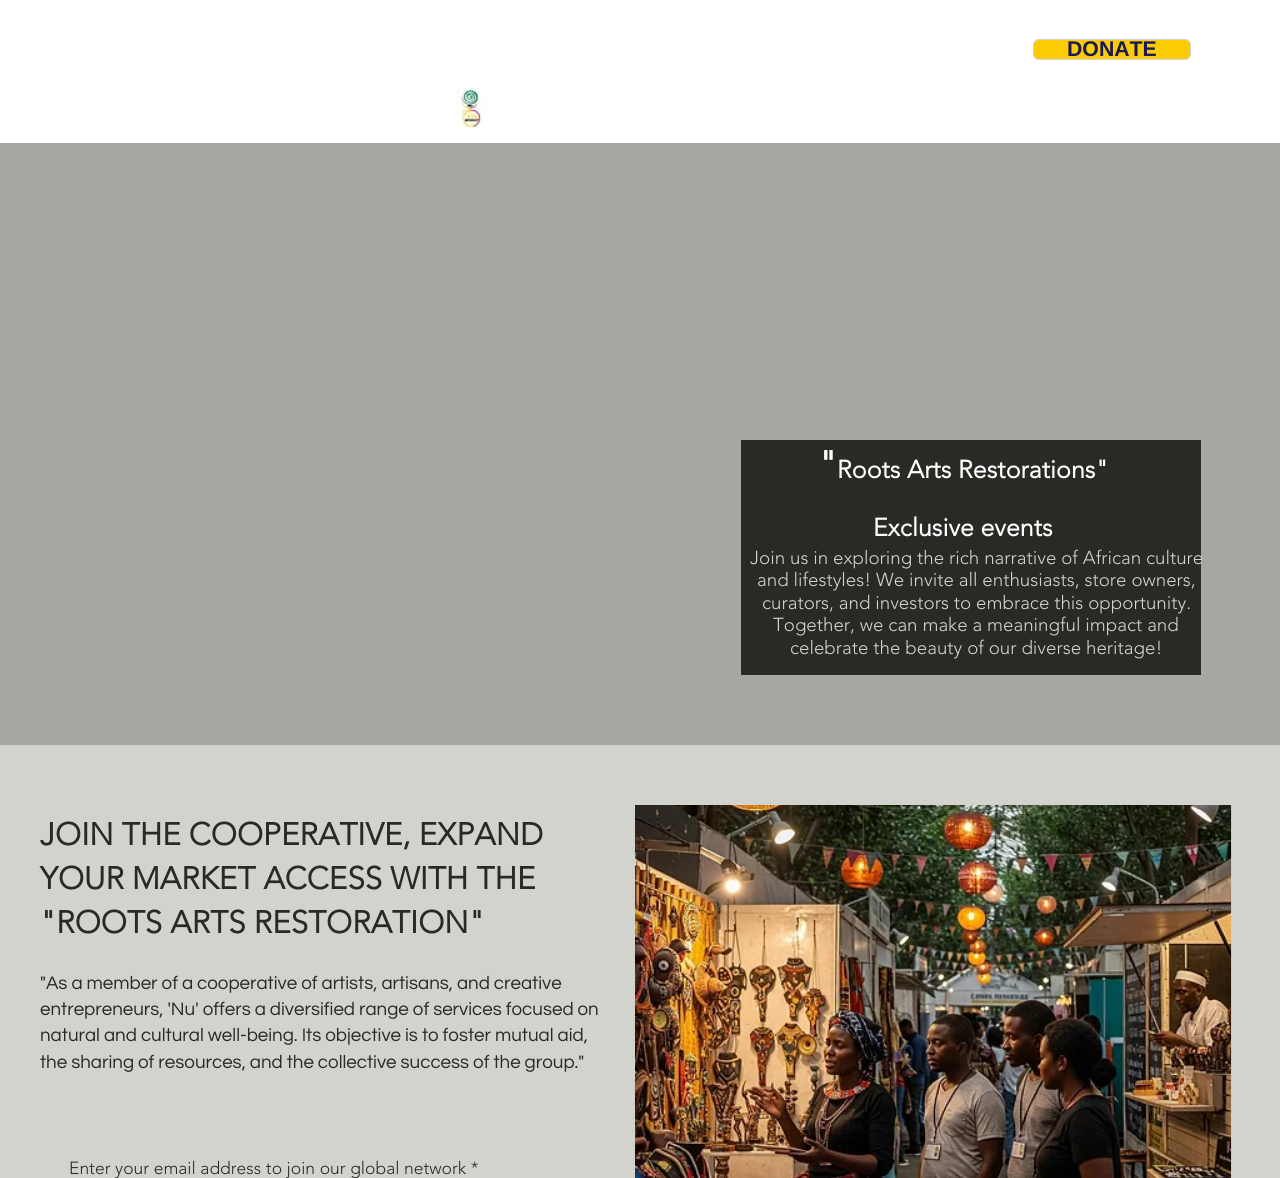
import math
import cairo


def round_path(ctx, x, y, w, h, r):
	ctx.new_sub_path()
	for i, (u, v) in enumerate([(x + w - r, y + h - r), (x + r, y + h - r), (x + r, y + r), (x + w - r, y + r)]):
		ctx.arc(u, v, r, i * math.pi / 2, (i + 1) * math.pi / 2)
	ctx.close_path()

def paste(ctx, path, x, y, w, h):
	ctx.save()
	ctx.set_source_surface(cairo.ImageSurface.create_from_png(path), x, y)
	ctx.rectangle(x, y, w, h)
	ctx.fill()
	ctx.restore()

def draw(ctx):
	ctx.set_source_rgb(1, 1, 1)
	ctx.paint()
	ctx.set_source_rgb(0.984, 0.8, 0.016)
	round_path(ctx, 1033.5, 39.5, 157, 20, 5.5)
	ctx.fill_preserve()
	ctx.set_source_rgb(0.827, 0.827, 0.808)
	ctx.set_line_width(1)
	ctx.stroke()
	ctx.select_font_face('Liberation Sans', cairo.FONT_SLANT_NORMAL, cairo.FONT_WEIGHT_BOLD)
	ctx.set_font_size(21.25)
	ctx.set_source_rgb(0.102, 0.094, 0.333)
	ctx.move_to(1067, 56)
	ctx.show_text('DONATE')
	paste(ctx, 'media/1.png', 455, 90, 30, 38)
	ctx.set_source_rgb(0.655, 0.655, 0.631)
	ctx.rectangle(0, 143, 1280, 602)
	ctx.fill()
	ctx.set_source_rgb(0.161, 0.161, 0.149)
	ctx.rectangle(741, 440, 460, 235)
	ctx.fill()
	ctx.select_font_face('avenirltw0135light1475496', cairo.FONT_SLANT_NORMAL, cairo.FONT_WEIGHT_BOLD)
	ctx.set_font_size(38)
	ctx.set_source_rgb(1, 1, 1)
	ctx.move_to(818, 478)
	ctx.show_text('"')
	ctx.set_font_size(25)
	ctx.move_to(837, 478)
	ctx.show_text('Roots Arts Restorations"')
	ctx.move_to(873, 536)
	ctx.show_text('Exclusive events')
	ctx.select_font_face('avenirltw0135light1475496 Light')
	ctx.set_font_size(18.75)
	ctx.set_source_rgb(0.827, 0.827, 0.808)
	for x, y, s in [
		(750, 564, 'Join us in exploring the rich narrative of African culture'),
		(757, 586, 'and lifestyles! We invite all enthusiasts, store owners,'),
		(762, 609, 'curators, and investors to embrace this opportunity.'),
		(773, 631, 'Together, we can make a meaningful impact and'),
		(790, 654, 'celebrate the beauty of our diverse heritage!'),
	]:
		ctx.move_to(x, y)
		ctx.show_text(s)
	ctx.rectangle(0, 745, 1280, 433)
	ctx.fill()
	ctx.select_font_face('avenirltw0135light1475496', cairo.FONT_SLANT_NORMAL, cairo.FONT_WEIGHT_BOLD)
	ctx.set_font_size(31.25)
	ctx.set_source_rgb(0.161, 0.161, 0.149)
	for x, y, s in [
		(40, 845, 'JOIN THE COOPERATIVE, EXPAND'),
		(40, 889, 'YOUR MARKET ACCESS WITH THE'),
		(40, 933, '"ROOTS ARTS RESTORATION"'),
	]:
		ctx.move_to(x, y)
		ctx.show_text(s)
	ctx.select_font_face('Questrial')
	ctx.set_font_size(18.75)
	for x, y, s in [
		(40, 989, '"As a member of a cooperative of artists, artisans, and creative'),
		(40, 1015, 'entrepreneurs, \'Nu\' offers a diversified range of services focused on'),
		(40, 1041, 'natural and cultural well-being. Its objective is to foster mutual aid,'),
		(40, 1068, 'the sharing of resources, and the collective success of the group."'),
	]:
		ctx.move_to(x, y)
		ctx.show_text(s)
	ctx.select_font_face('avenirltw0135light1475496 Light')
	ctx.set_font_size(17.5)
	ctx.move_to(69, 1174)
	ctx.show_text('Enter your email address to join our global network *')
	paste(ctx, 'media/2.png', 635, 805, 597, 373)


surface = cairo.ImageSurface(cairo.FORMAT_RGB24, 1280, 1178)
ctx = cairo.Context(surface)
options = cairo.FontOptions()
options.set_hint_metrics(cairo.HINT_METRICS_OFF)
options.set_hint_style(cairo.HINT_STYLE_NONE)
ctx.set_font_options(options)
ctx.set_miter_limit(4)
draw(ctx)
surface.write_to_png('image.png')
